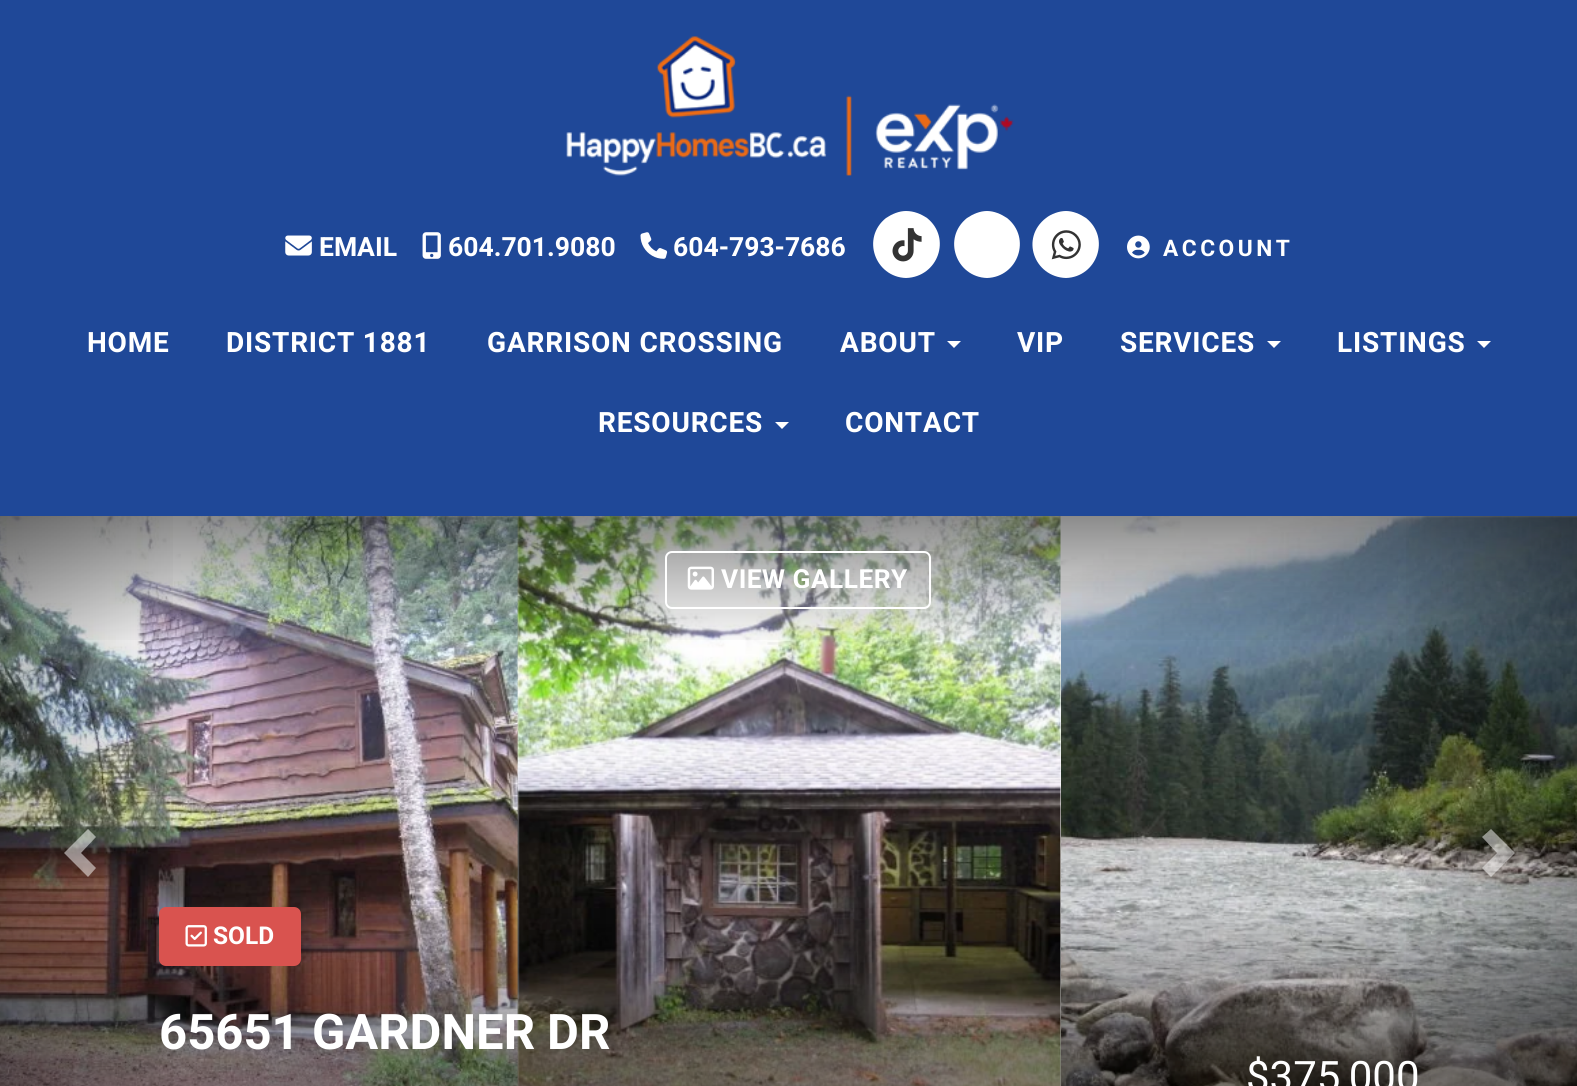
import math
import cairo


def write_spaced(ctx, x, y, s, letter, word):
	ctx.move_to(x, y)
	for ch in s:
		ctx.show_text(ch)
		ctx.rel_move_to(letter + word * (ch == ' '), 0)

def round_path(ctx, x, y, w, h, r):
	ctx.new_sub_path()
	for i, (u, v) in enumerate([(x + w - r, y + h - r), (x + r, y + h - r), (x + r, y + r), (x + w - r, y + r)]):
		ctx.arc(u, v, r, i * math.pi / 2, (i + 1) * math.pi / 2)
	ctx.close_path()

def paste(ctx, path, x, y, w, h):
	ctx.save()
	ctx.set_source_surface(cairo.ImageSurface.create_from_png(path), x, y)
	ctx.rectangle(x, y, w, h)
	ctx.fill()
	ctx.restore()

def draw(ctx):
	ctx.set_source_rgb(0.122, 0.282, 0.596)
	ctx.paint()
	paste(ctx, 'media/1.png', 566, 36, 448, 140)
	paste(ctx, 'media/2.png', 285, 235, 27, 21)
	ctx.select_font_face('Heebo', cairo.FONT_SLANT_NORMAL, cairo.FONT_WEIGHT_BOLD)
	ctx.set_font_size(26.5)
	ctx.set_source_rgb(1, 1, 1)
	ctx.move_to(319, 256)
	ctx.show_text('EMAIL')
	paste(ctx, 'media/3.png', 422, 232, 19, 27)
	ctx.move_to(448, 256)
	ctx.show_text('604.701.9080')
	paste(ctx, 'media/4.png', 640, 232, 28, 27)
	ctx.move_to(673, 256)
	ctx.show_text('604-793-7686')
	ctx.new_path()
	ctx.move_to(906, 278)
	ctx.curve_to(938, 277, 952, 238, 927, 218)
	ctx.curve_to(921, 214, 914, 211, 906, 211)
	ctx.curve_to(899, 211, 892, 214, 886, 218)
	ctx.curve_to(861, 238, 875, 277, 906, 278)
	ctx.close_path()
	ctx.fill()
	paste(ctx, 'media/5.png', 892, 228, 30, 34)
	ctx.new_path()
	ctx.move_to(987, 278)
	ctx.curve_to(1018, 277, 1032, 238, 1007, 218)
	ctx.curve_to(1001, 214, 994, 211, 987, 211)
	ctx.curve_to(980, 211, 973, 214, 967, 218)
	ctx.curve_to(942, 238, 956, 277, 987, 278)
	ctx.close_path()
	ctx.fill()
	ctx.new_path()
	ctx.move_to(1066, 278)
	ctx.curve_to(1097, 277, 1111, 238, 1086, 218)
	ctx.curve_to(1080, 214, 1073, 211, 1066, 211)
	ctx.curve_to(1059, 211, 1051, 214, 1046, 218)
	ctx.curve_to(1020, 238, 1034, 277, 1066, 278)
	ctx.close_path()
	ctx.fill()
	paste(ctx, 'media/6.png', 1051, 230, 30, 30)
	paste(ctx, 'media/7.png', 1127, 235, 23, 24)
	ctx.select_font_face('Roboto', cairo.FONT_SLANT_NORMAL, cairo.FONT_WEIGHT_BOLD)
	ctx.set_font_size(22.75)
	write_spaced(ctx, 1163, 256, 'ACCOUNT', 3.5, 0)
	ctx.select_font_face('Heebo', cairo.FONT_SLANT_NORMAL, cairo.FONT_WEIGHT_BOLD)
	ctx.set_font_size(28)
	for x, y, s in [
		(87, 352, 'HOME'),
		(226, 352, 'DISTRICT 1881'),
		(487, 352, 'GARRISON CROSSING'),
		(840, 352, 'ABOUT'),
	]:
		write_spaced(ctx, x, y, s, 0.8, 0)
	ctx.new_path()
	ctx.move_to(947, 341)
	ctx.line_to(961, 341)
	ctx.line_to(954, 348)
	ctx.close_path()
	ctx.fill()
	write_spaced(ctx, 1017, 352, 'VIP', 0.8, 0)
	write_spaced(ctx, 1120, 352, 'SERVICES', 0.8, 0)
	ctx.new_path()
	ctx.move_to(1267, 341)
	ctx.line_to(1281, 341)
	ctx.line_to(1274, 348)
	ctx.close_path()
	ctx.fill()
	write_spaced(ctx, 1337, 352, 'LISTINGS', 0.8, 0)
	ctx.new_path()
	ctx.move_to(1477, 341)
	ctx.line_to(1491, 341)
	ctx.line_to(1484, 348)
	ctx.close_path()
	ctx.fill()
	write_spaced(ctx, 598, 432, 'RESOURCES', 0.8, 0)
	ctx.new_path()
	ctx.move_to(775, 422)
	ctx.line_to(789, 422)
	ctx.line_to(782, 429)
	ctx.close_path()
	ctx.fill()
	write_spaced(ctx, 845, 432, 'CONTACT', 0.8, 0)
	ctx.set_source_rgb(0.961, 0.961, 0.961)
	ctx.rectangle(0, 516, 1577, 570)
	ctx.fill()
	paste(ctx, 'media/8.png', 0, 516, 518, 570)
	gradient = cairo.LinearGradient(0, 843, 189, 843)
	gradient.add_color_stop_rgba(0, 0, 0, 0, 0.25)
	gradient.add_color_stop_rgba(1, 0, 0, 0, 0)
	ctx.set_source(gradient)
	ctx.rectangle(0, 516, 173, 570)
	ctx.fill()
	ctx.set_source_rgba(1, 1, 1, 0.5)
	ctx.new_path()
	ctx.move_to(96, 837)
	ctx.line_to(81, 853)
	ctx.line_to(96, 868)
	ctx.line_to(88, 877)
	ctx.line_to(64, 853)
	ctx.line_to(88, 829)
	ctx.close_path()
	ctx.fill()
	paste(ctx, 'media/9.png', 517, 516, 545, 570)
	paste(ctx, 'media/10.png', 1061, 516, 516, 570)
	gradient = cairo.LinearGradient(1390, 843, 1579, 843)
	gradient.add_color_stop_rgba(0, 0, 0, 0, 0)
	gradient.add_color_stop_rgba(1, 0, 0, 0, 0.25)
	ctx.set_source(gradient)
	ctx.rectangle(1406, 516, 171, 570)
	ctx.fill()
	gradient = cairo.LinearGradient(789, 516, 789, 646)
	gradient.add_color_stop_rgba(0, 0, 0, 0, 0.45)
	gradient.add_color_stop_rgba(1, 0, 0, 0, 0)
	ctx.set_source(gradient)
	ctx.rectangle(0, 516, 1577, 124)
	ctx.fill()
	round_path(ctx, 666, 552, 264, 56, 6)
	ctx.set_source_rgb(1, 1, 1)
	ctx.stroke()
	paste(ctx, 'media/11.png', 687, 566, 27, 24)
	ctx.select_font_face('Roboto', cairo.FONT_SLANT_NORMAL, cairo.FONT_WEIGHT_BOLD)
	ctx.set_font_size(26.25)
	write_spaced(ctx, 721, 588, 'VIEW GALLERY', 0.5, 0)
	ctx.set_source_rgba(1, 1, 1, 0.5)
	ctx.new_path()
	ctx.move_to(1515, 853)
	ctx.line_to(1491, 877)
	ctx.line_to(1482, 868)
	ctx.line_to(1497, 853)
	ctx.line_to(1482, 837)
	ctx.line_to(1491, 829)
	ctx.close_path()
	ctx.fill()
	gradient = cairo.LinearGradient(789, 907, 789, 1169)
	gradient.add_color_stop_rgba(0, 0, 0, 0, 0)
	gradient.add_color_stop_rgba(0.6, 0, 0, 0, 0.45)
	ctx.set_source(gradient)
	ctx.rectangle(0, 915, 1577, 171)
	ctx.fill()
	ctx.set_source_rgb(0.851, 0.325, 0.31)
	round_path(ctx, 159, 907, 142, 59, 7)
	ctx.fill()
	paste(ctx, 'media/12.png', 185, 925, 22, 22)
	ctx.set_font_size(24.5)
	ctx.set_source_rgb(1, 1, 1)
	ctx.move_to(213, 944)
	ctx.show_text('SOLD')
	ctx.select_font_face('Heebo', cairo.FONT_SLANT_NORMAL, cairo.FONT_WEIGHT_BOLD)
	ctx.set_font_size(49)
	ctx.move_to(159, 1049)
	ctx.show_text('65651 GARDNER DR')
	ctx.select_font_face('Roboto')
	ctx.set_font_size(42)
	ctx.move_to(1246, 1091)
	ctx.show_text('$375,000')


surface = cairo.ImageSurface(cairo.FORMAT_RGB24, 1577, 1086)
ctx = cairo.Context(surface)
options = cairo.FontOptions()
options.set_hint_metrics(cairo.HINT_METRICS_OFF)
options.set_hint_style(cairo.HINT_STYLE_NONE)
ctx.set_font_options(options)
ctx.set_miter_limit(4)
draw(ctx)
surface.write_to_png('image.png')
